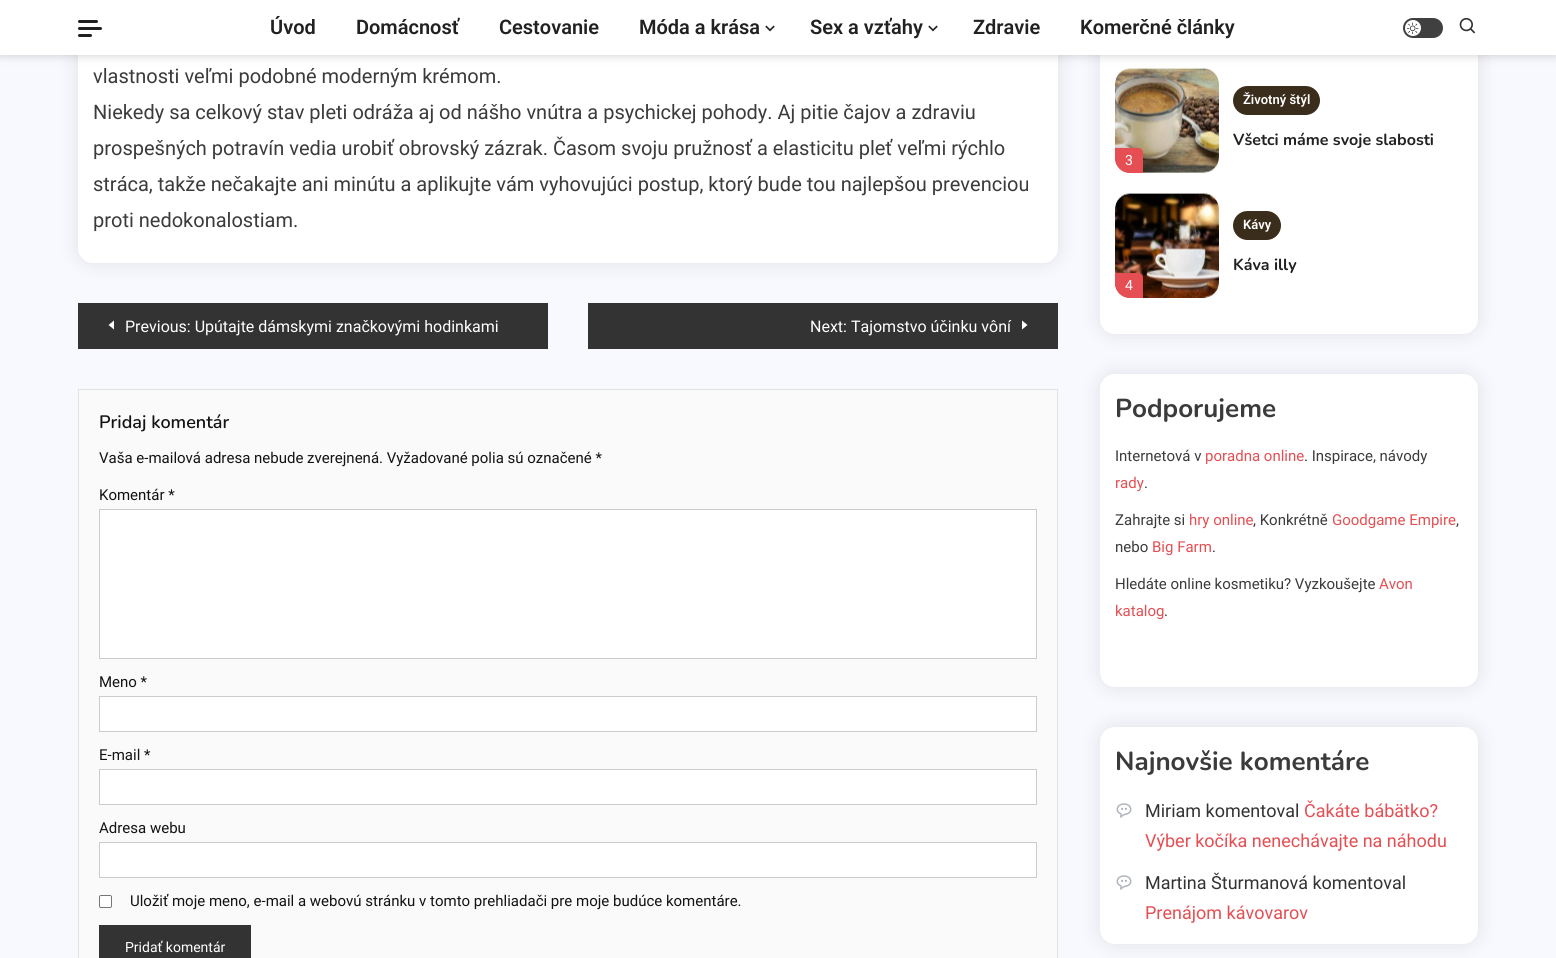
import math
import cairo


def round_path(ctx, x, y, w, h, r):
	ctx.new_sub_path()
	for i, (u, v) in enumerate([(x + w - r, y + h - r), (x + r, y + h - r), (x + r, y + r), (x + w - r, y + r)]):
		ctx.arc(u, v, r, i * math.pi / 2, (i + 1) * math.pi / 2)
	ctx.close_path()

def blur_box(ctx, x, y, w, h, r, blur, alpha):
	ctx.push_group_with_content(cairo.CONTENT_ALPHA)
	ctx.set_operator(cairo.OPERATOR_SOURCE)
	for i in range(15, -16, -2):
		e = blur * i / 6
		if min(w, h) + 2 * e > 0:
			ctx.set_source_rgba(0, 0, 0, alpha * math.erfc((i - 1) / 8.5) / 2)
			round_path(ctx, x - e, y - e, w + 2 * e, h + 2 * e, max(0, min(r + e + blur * .6, min(w, h) / 2 + e)))
			ctx.fill()
	ctx.mask(ctx.pop_group())

def paste(ctx, path, x, y, w, h):
	ctx.save()
	ctx.set_source_surface(cairo.ImageSurface.create_from_png(path), x, y)
	ctx.rectangle(x, y, w, h)
	ctx.fill()
	ctx.restore()

def draw(ctx):
	ctx.set_source_rgb(0.969, 0.969, 1)
	ctx.paint()
	ctx.set_source_rgb(0, 0, 0)
	blur_box(ctx, 78, -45, 980, 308, 15, 10, 0.1)
	ctx.set_source_rgb(1, 1, 1)
	round_path(ctx, 78, -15, 980, 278, 15)
	ctx.fill()
	ctx.set_source_rgb(0, 0, 0)
	blur_box(ctx, 1100, -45, 378, 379, 15, 10, 0.1)
	ctx.set_source_rgb(1, 1, 1)
	round_path(ctx, 1100, -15, 378, 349, 15)
	ctx.fill()
	paste(ctx, 'media/4.png', 1115, 68, 104, 105)
	ctx.set_source_rgb(0, 0, 0)
	blur_box(ctx, 0, 0, 1556, 55, 0, 5, 0.2)
	ctx.set_source_rgb(1, 1, 1)
	ctx.rectangle(0, 0, 1556, 55)
	ctx.fill()
	ctx.set_source_rgb(0.129, 0.129, 0.129)
	round_path(ctx, 78, 20, 20, 3, 1.5)
	ctx.fill()
	round_path(ctx, 78, 27, 24, 3, 1.5)
	ctx.fill()
	round_path(ctx, 78, 34, 14, 3, 1.5)
	ctx.fill()
	ctx.select_font_face('Roboto SemiBold')
	ctx.set_font_size(20)
	for x, y, s in [
		(270, 34, 'Úvod'),
		(356, 34, 'Domácnosť'),
		(499, 34, 'Cestovanie'),
		(639, 34, 'Móda a krása'),
	]:
		ctx.move_to(x, y)
		ctx.show_text(s)
	paste(ctx, 'media/1.png', 765, 25, 10, 7)
	ctx.move_to(810, 34)
	ctx.show_text('Sex a vzťahy')
	paste(ctx, 'media/1.png', 928, 25, 10, 7)
	ctx.move_to(973, 34)
	ctx.show_text('Zdravie')
	ctx.move_to(1080, 34)
	ctx.show_text('Komerčné články')
	ctx.set_source_rgb(0.251, 0.251, 0.251)
	round_path(ctx, 1403, 18, 40, 20, 10)
	ctx.fill()
	ctx.set_source_rgb(1, 1, 1)
	ctx.arc(1413, 28, 8, 0, 2 * math.pi)
	ctx.fill()
	paste(ctx, 'media/2.png', 1407, 22, 12, 12)
	paste(ctx, 'media/3.png', 1459, 17, 17, 17)
	ctx.select_font_face('Roboto')
	ctx.set_source_rgb(0.231, 0.231, 0.231)
	for x, y, s in [
		(93, 83, 'vlastnosti veľmi podobné moderným krémom.'),
		(93, 119, 'Niekedy sa celkový stav pleti odráža aj od nášho vnútra a psychickej pohody. Aj pitie čajov a zdraviu'),
		(93, 155, 'prospešných potravín vedia urobiť obrovský zázrak. Časom svoju pružnosť a elasticitu pleť veľmi rýchlo'),
		(93, 191, 'stráca, takže nečakajte ani minútu a aplikujte vám vyhovujúci postup, ktorý bude tou najlepšou prevenciou'),
		(93, 227, 'proti nedokonalostiam.'),
	]:
		ctx.move_to(x, y)
		ctx.show_text(s)
	ctx.set_source_rgb(0.2, 0.2, 0.2)
	ctx.rectangle(78, 303, 470, 46)
	ctx.fill()
	ctx.set_source_rgb(1, 1, 1)
	ctx.new_path()
	ctx.move_to(114, 329.5)
	ctx.line_to(114, 320.5)
	ctx.line_to(108.5, 325)
	ctx.close_path()
	ctx.fill()
	ctx.set_font_size(16)
	ctx.move_to(125, 332)
	ctx.show_text('Previous: Upútajte dámskymi značkovými hodinkami')
	ctx.set_source_rgb(0.2, 0.2, 0.2)
	ctx.rectangle(588, 303, 470, 46)
	ctx.fill()
	ctx.set_source_rgb(1, 1, 1)
	ctx.move_to(810, 332)
	ctx.show_text('Next: Tajomstvo účinku vôní')
	ctx.new_path()
	ctx.move_to(1022, 329.5)
	ctx.line_to(1027.5, 325)
	ctx.line_to(1022, 320.5)
	ctx.close_path()
	ctx.fill()
	ctx.set_source_rgb(0.98, 0.98, 0.98)
	ctx.rectangle(78.5, 389.5, 979, 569)
	ctx.fill_preserve()
	ctx.set_source_rgb(0.882, 0.882, 0.882)
	ctx.set_line_width(1)
	ctx.stroke()
	ctx.select_font_face('Nunito SemiBold')
	ctx.set_font_size(18)
	ctx.set_source_rgb(0.078, 0.078, 0.078)
	ctx.move_to(99, 428)
	ctx.show_text('Pridaj komentár')
	ctx.select_font_face('Roboto')
	ctx.set_font_size(15)
	ctx.move_to(99, 463)
	ctx.show_text('Vaša e-mailová adresa nebude zverejnená. Vyžadované polia sú označené *')
	ctx.move_to(99, 500)
	ctx.show_text('Komentár *')
	ctx.set_source_rgb(1, 1, 1)
	ctx.rectangle(99.5, 509.5, 937, 149)
	ctx.fill_preserve()
	ctx.set_source_rgb(0.8, 0.8, 0.8)
	ctx.stroke()
	ctx.set_source_rgb(0.078, 0.078, 0.078)
	ctx.move_to(99, 687)
	ctx.show_text('Meno *')
	ctx.set_source_rgb(1, 1, 1)
	ctx.rectangle(99.5, 696.5, 937, 35)
	ctx.fill_preserve()
	ctx.set_source_rgb(0.8, 0.8, 0.8)
	ctx.stroke()
	ctx.set_source_rgb(0.078, 0.078, 0.078)
	ctx.move_to(99, 760)
	ctx.show_text('E-mail *')
	ctx.set_source_rgb(1, 1, 1)
	ctx.rectangle(99.5, 769.5, 937, 35)
	ctx.fill_preserve()
	ctx.set_source_rgb(0.8, 0.8, 0.8)
	ctx.stroke()
	ctx.set_source_rgb(0.078, 0.078, 0.078)
	ctx.move_to(99, 833)
	ctx.show_text('Adresa webu')
	ctx.set_source_rgb(1, 1, 1)
	ctx.rectangle(99.5, 842.5, 937, 35)
	ctx.fill_preserve()
	ctx.set_source_rgb(0.8, 0.8, 0.8)
	ctx.stroke()
	ctx.set_source_rgb(1, 1, 1)
	round_path(ctx, 99.5, 895.5, 12, 12, 1.5)
	ctx.fill_preserve()
	ctx.set_source_rgb(0.463, 0.463, 0.463)
	ctx.stroke()
	ctx.set_source_rgb(0.078, 0.078, 0.078)
	ctx.move_to(130, 906)
	ctx.show_text('Uložiť moje meno, e-mail a webovú stránku v tomto prehliadači pre moje budúce komentáre.')
	ctx.set_source_rgb(0.2, 0.2, 0.2)
	ctx.rectangle(99, 925, 152, 33)
	ctx.fill()
	ctx.set_font_size(14)
	ctx.set_source_rgb(1, 1, 1)
	ctx.move_to(125, 952)
	ctx.show_text('Pridať komentár')
	ctx.set_source_rgb(0.231, 0.176, 0.106)
	round_path(ctx, 1233, 86, 87, 29, 14.5)
	ctx.fill()
	ctx.select_font_face('Roboto SemiBold')
	ctx.set_font_size(13)
	ctx.set_source_rgb(1, 1, 1)
	ctx.move_to(1243, 104)
	ctx.show_text('Životný štýl')
	ctx.select_font_face('Nunito', cairo.FONT_SLANT_NORMAL, cairo.FONT_WEIGHT_BOLD)
	ctx.set_font_size(16)
	ctx.set_source_rgb(0.129, 0.129, 0.129)
	ctx.move_to(1233, 145)
	ctx.show_text('Všetci máme svoje slabosti')
	ctx.set_source_rgb(0.898, 0.306, 0.325)
	ctx.new_path()
	ctx.move_to(1115, 148)
	ctx.line_to(1138, 148)
	ctx.curve_to(1141, 148, 1143, 150, 1143, 153)
	ctx.line_to(1143, 173)
	ctx.line_to(1130, 173)
	ctx.curve_to(1121.5, 173, 1115, 166.5, 1115, 158)
	ctx.close_path()
	ctx.fill()
	ctx.select_font_face('Roboto')
	ctx.set_font_size(14)
	ctx.set_source_rgb(1, 1, 1)
	ctx.move_to(1125, 165)
	ctx.show_text('3')
	ctx.set_source_rgb(0.231, 0.176, 0.106)
	round_path(ctx, 1233, 211, 48, 29, 14.5)
	ctx.fill()
	ctx.select_font_face('Roboto SemiBold')
	ctx.set_font_size(13)
	ctx.set_source_rgb(1, 1, 1)
	ctx.move_to(1243, 229)
	ctx.show_text('Kávy')
	ctx.select_font_face('Nunito', cairo.FONT_SLANT_NORMAL, cairo.FONT_WEIGHT_BOLD)
	ctx.set_font_size(16)
	ctx.set_source_rgb(0.129, 0.129, 0.129)
	ctx.move_to(1233, 270)
	ctx.show_text('Káva illy')
	paste(ctx, 'media/5.png', 1115, 193, 104, 105)
	ctx.set_source_rgb(0.898, 0.306, 0.325)
	ctx.new_path()
	ctx.move_to(1115, 273)
	ctx.line_to(1138, 273)
	ctx.curve_to(1141, 273, 1143, 275, 1143, 278)
	ctx.line_to(1143, 298)
	ctx.line_to(1130, 298)
	ctx.curve_to(1121.5, 298, 1115, 291.5, 1115, 283)
	ctx.close_path()
	ctx.fill()
	ctx.select_font_face('Roboto')
	ctx.set_font_size(14)
	ctx.set_source_rgb(1, 1, 1)
	ctx.move_to(1125, 290)
	ctx.show_text('4')
	ctx.set_source_rgb(0, 0, 0)
	blur_box(ctx, 1100, 374, 378, 313, 15, 10, 0.1)
	ctx.set_source_rgb(1, 1, 1)
	round_path(ctx, 1100, 374, 378, 313, 15)
	ctx.fill()
	ctx.select_font_face('Nunito', cairo.FONT_SLANT_NORMAL, cairo.FONT_WEIGHT_BOLD)
	ctx.set_font_size(26)
	ctx.set_source_rgb(0.231, 0.231, 0.231)
	ctx.move_to(1115, 417)
	ctx.show_text('Podporujeme')
	ctx.select_font_face('Roboto')
	ctx.set_font_size(15)
	ctx.move_to(1115, 461)
	ctx.show_text('Internetová v')
	ctx.set_source_rgb(0.898, 0.306, 0.325)
	ctx.move_to(1205, 461)
	ctx.show_text('poradna online')
	ctx.set_source_rgb(0.231, 0.231, 0.231)
	ctx.move_to(1304, 461)
	ctx.show_text('. Inspirace, návody')
	ctx.set_source_rgb(0.898, 0.306, 0.325)
	ctx.move_to(1115, 488)
	ctx.show_text('rady')
	ctx.set_source_rgb(0.231, 0.231, 0.231)
	ctx.move_to(1144, 488)
	ctx.show_text('.')
	ctx.move_to(1115, 525)
	ctx.show_text('Zahrajte si')
	ctx.set_source_rgb(0.898, 0.306, 0.325)
	ctx.move_to(1189, 525)
	ctx.show_text('hry online')
	ctx.set_source_rgb(0.231, 0.231, 0.231)
	ctx.move_to(1253, 525)
	ctx.show_text(', Konkrétně')
	ctx.set_source_rgb(0.898, 0.306, 0.325)
	ctx.move_to(1332, 525)
	ctx.show_text('Goodgame Empire')
	ctx.set_source_rgb(0.231, 0.231, 0.231)
	ctx.move_to(1456, 525)
	ctx.show_text(',')
	ctx.move_to(1115, 552)
	ctx.show_text('nebo')
	ctx.set_source_rgb(0.898, 0.306, 0.325)
	ctx.move_to(1152, 552)
	ctx.show_text('Big Farm')
	ctx.set_source_rgb(0.231, 0.231, 0.231)
	ctx.move_to(1212, 552)
	ctx.show_text('.')
	ctx.move_to(1115, 589)
	ctx.show_text('Hledáte online kosmetiku? Vyzkoušejte')
	ctx.set_source_rgb(0.898, 0.306, 0.325)
	ctx.move_to(1379, 589)
	ctx.show_text('Avon')
	ctx.move_to(1115, 616)
	ctx.show_text('katalog')
	ctx.set_source_rgb(0.231, 0.231, 0.231)
	ctx.move_to(1164, 616)
	ctx.show_text('.')
	ctx.set_source_rgb(0, 0, 0)
	blur_box(ctx, 1100, 727, 378, 217, 15, 10, 0.1)
	ctx.set_source_rgb(1, 1, 1)
	round_path(ctx, 1100, 727, 378, 217, 15)
	ctx.fill()
	ctx.select_font_face('Nunito', cairo.FONT_SLANT_NORMAL, cairo.FONT_WEIGHT_BOLD)
	ctx.set_font_size(26)
	ctx.set_source_rgb(0.231, 0.231, 0.231)
	ctx.move_to(1115, 770)
	ctx.show_text('Najnovšie komentáre')
	paste(ctx, 'media/6.png', 1116, 803, 16, 15)
	ctx.select_font_face('Roboto')
	ctx.set_font_size(18)
	ctx.set_source_rgb(0.2, 0.2, 0.2)
	ctx.move_to(1145, 817)
	ctx.show_text('Miriam komentoval')
	ctx.set_source_rgb(0.898, 0.306, 0.325)
	ctx.move_to(1304, 817)
	ctx.show_text('Čakáte bábätko?')
	ctx.move_to(1145, 847)
	ctx.show_text('Výber kočíka nenechávajte na náhodu')
	paste(ctx, 'media/6.png', 1116, 875, 16, 15)
	ctx.set_source_rgb(0.2, 0.2, 0.2)
	ctx.move_to(1145, 889)
	ctx.show_text('Martina Šturmanová komentoval')
	ctx.set_source_rgb(0.898, 0.306, 0.325)
	ctx.move_to(1145, 919)
	ctx.show_text('Prenájom kávovarov')


surface = cairo.ImageSurface(cairo.FORMAT_RGB24, 1556, 958)
ctx = cairo.Context(surface)
options = cairo.FontOptions()
options.set_hint_metrics(cairo.HINT_METRICS_OFF)
options.set_hint_style(cairo.HINT_STYLE_NONE)
ctx.set_font_options(options)
ctx.set_miter_limit(4)
draw(ctx)
surface.write_to_png('image.png')
